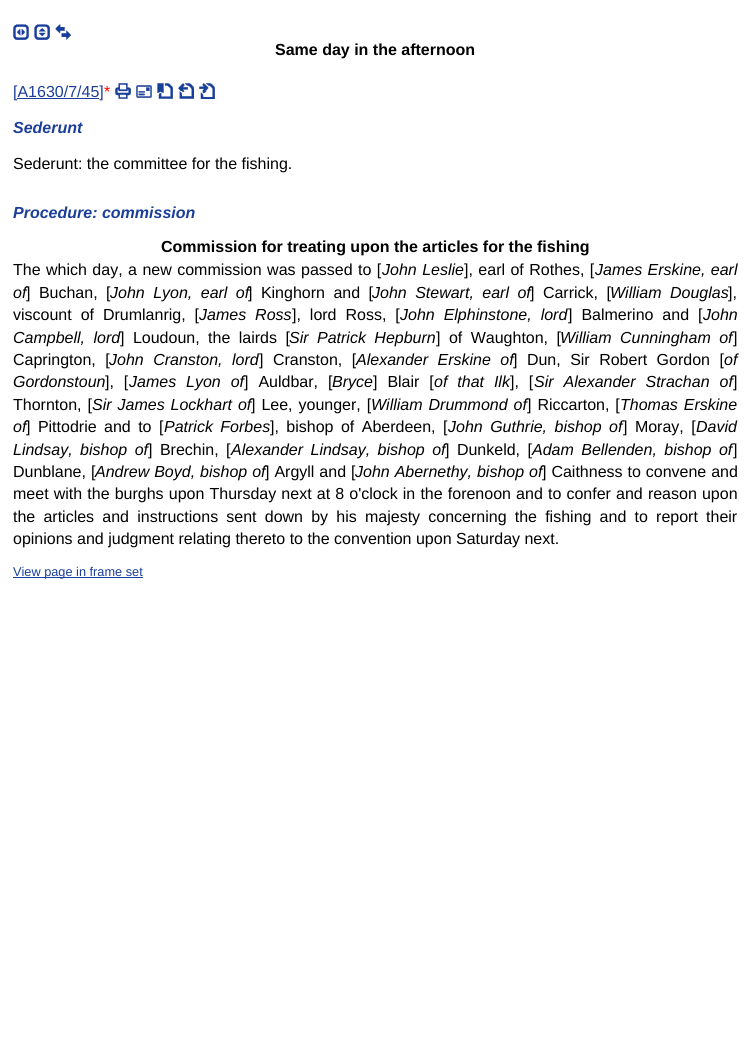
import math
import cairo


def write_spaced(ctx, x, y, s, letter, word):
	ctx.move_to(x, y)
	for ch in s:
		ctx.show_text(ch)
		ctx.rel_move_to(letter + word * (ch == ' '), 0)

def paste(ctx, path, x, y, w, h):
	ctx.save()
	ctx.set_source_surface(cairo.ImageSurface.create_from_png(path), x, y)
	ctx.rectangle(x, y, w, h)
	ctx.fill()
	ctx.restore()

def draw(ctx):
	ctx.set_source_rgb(1, 1, 1)
	ctx.paint()
	paste(ctx, 'media/1.png', 13, 24, 16, 16)
	paste(ctx, 'media/2.png', 34, 24, 16, 16)
	paste(ctx, 'media/3.png', 55, 24, 16, 16)
	ctx.select_font_face('Liberation Sans', cairo.FONT_SLANT_NORMAL, cairo.FONT_WEIGHT_BOLD)
	ctx.set_font_size(16)
	ctx.set_source_rgb(0, 0, 0)
	ctx.move_to(275, 55)
	ctx.show_text('Same day in the afternoon')
	ctx.select_font_face('Liberation Sans')
	ctx.set_source_rgb(0.106, 0.243, 0.6)
	ctx.move_to(13, 97)
	ctx.show_text('[A1630/7/45]')
	ctx.set_source_rgb(1, 0, 0)
	ctx.move_to(104, 97)
	ctx.show_text('*')
	paste(ctx, 'media/4.png', 115, 83, 16, 16)
	paste(ctx, 'media/5.png', 136, 85, 16, 13)
	paste(ctx, 'media/6.png', 157, 83, 16, 16)
	paste(ctx, 'media/7.png', 178, 83, 16, 16)
	paste(ctx, 'media/8.png', 199, 83, 16, 16)
	ctx.set_source_rgb(0.106, 0.243, 0.6)
	ctx.rectangle(17, 98, 82, 1)
	ctx.fill()
	ctx.select_font_face('Liberation Sans', cairo.FONT_SLANT_ITALIC, cairo.FONT_WEIGHT_BOLD)
	ctx.move_to(13, 133)
	ctx.show_text('Sederunt')
	ctx.select_font_face('Liberation Sans')
	ctx.set_source_rgb(0, 0, 0)
	ctx.move_to(13, 169)
	ctx.show_text('Sederunt: the committee for the fishing.')
	ctx.select_font_face('Liberation Sans', cairo.FONT_SLANT_ITALIC, cairo.FONT_WEIGHT_BOLD)
	ctx.set_source_rgb(0.106, 0.243, 0.6)
	ctx.move_to(13, 218)
	ctx.show_text('Procedure: commission')
	ctx.select_font_face('Liberation Sans', cairo.FONT_SLANT_NORMAL, cairo.FONT_WEIGHT_BOLD)
	ctx.set_source_rgb(0, 0, 0)
	ctx.move_to(161, 252)
	ctx.show_text('Commission for treating upon the articles for the fishing')
	ctx.select_font_face('Liberation Sans')
	write_spaced(ctx, 13, 275, 'The which day, a new commission was passed to [', 0, 1)
	ctx.select_font_face('Liberation Sans', cairo.FONT_SLANT_ITALIC)
	write_spaced(ctx, 382, 275, 'John Leslie', 0, 1)
	ctx.select_font_face('Liberation Sans')
	write_spaced(ctx, 464, 275, '], earl of Rothes, [', 0, 1)
	ctx.select_font_face('Liberation Sans', cairo.FONT_SLANT_ITALIC)
	write_spaced(ctx, 595, 275, 'James Erskine, earl', 0, 1)
	ctx.move_to(13, 298)
	ctx.show_text('of')
	ctx.select_font_face('Liberation Sans')
	write_spaced(ctx, 26, 298, '] Buchan, [', 0, 4)
	ctx.select_font_face('Liberation Sans', cairo.FONT_SLANT_ITALIC)
	write_spaced(ctx, 110, 298, 'John Lyon, earl of', 0, 4)
	ctx.select_font_face('Liberation Sans')
	write_spaced(ctx, 248, 298, '] Kinghorn and [', 0, 4)
	ctx.select_font_face('Liberation Sans', cairo.FONT_SLANT_ITALIC)
	write_spaced(ctx, 372, 298, 'John Stewart, earl of', 0, 4)
	ctx.select_font_face('Liberation Sans')
	write_spaced(ctx, 530, 298, '] Carrick, [', 0, 4)
	ctx.select_font_face('Liberation Sans', cairo.FONT_SLANT_ITALIC)
	write_spaced(ctx, 610, 298, 'William Douglas', 0, 4)
	ctx.select_font_face('Liberation Sans')
	ctx.move_to(728, 298)
	ctx.show_text('],')
	write_spaced(ctx, 13, 320, 'viscount of Drumlanrig, [', 0, 4.5)
	ctx.select_font_face('Liberation Sans', cairo.FONT_SLANT_ITALIC)
	write_spaced(ctx, 199, 320, 'James Ross', 0, 4.5)
	ctx.select_font_face('Liberation Sans')
	write_spaced(ctx, 292, 320, '], lord Ross, [', 0, 4.5)
	ctx.select_font_face('Liberation Sans', cairo.FONT_SLANT_ITALIC)
	write_spaced(ctx, 400, 320, 'John Elphinstone, lord', 0, 4.5)
	ctx.select_font_face('Liberation Sans')
	write_spaced(ctx, 568, 320, '] Balmerino and [', 0, 4.5)
	ctx.select_font_face('Liberation Sans', cairo.FONT_SLANT_ITALIC)
	ctx.move_to(703, 320)
	ctx.show_text('John')
	write_spaced(ctx, 13, 343, 'Campbell, lord', 0, 4)
	ctx.select_font_face('Liberation Sans')
	write_spaced(ctx, 120, 343, '] Loudoun, the lairds [', 0, 4)
	ctx.select_font_face('Liberation Sans', cairo.FONT_SLANT_ITALIC)
	write_spaced(ctx, 289, 343, 'Sir Patrick Hepburn', 0, 4)
	ctx.select_font_face('Liberation Sans')
	write_spaced(ctx, 436, 343, '] of Waughton, [', 0, 4)
	ctx.select_font_face('Liberation Sans', cairo.FONT_SLANT_ITALIC)
	write_spaced(ctx, 560, 343, 'William Cunningham of', 0, 4)
	ctx.select_font_face('Liberation Sans')
	ctx.move_to(733, 343)
	ctx.show_text(']')
	write_spaced(ctx, 13, 365, 'Caprington, [', 0, 5)
	ctx.select_font_face('Liberation Sans', cairo.FONT_SLANT_ITALIC)
	write_spaced(ctx, 109, 365, 'John Cranston, lord', 0, 5)
	ctx.select_font_face('Liberation Sans')
	write_spaced(ctx, 259, 365, '] Cranston, [', 0, 5)
	ctx.select_font_face('Liberation Sans', cairo.FONT_SLANT_ITALIC)
	write_spaced(ctx, 356, 365, 'Alexander Erskine of', 0, 5)
	ctx.select_font_face('Liberation Sans')
	write_spaced(ctx, 513, 365, '] Dun, Sir Robert Gordon [', 0, 5)
	ctx.select_font_face('Liberation Sans', cairo.FONT_SLANT_ITALIC)
	ctx.move_to(724, 365)
	ctx.show_text('of')
	ctx.move_to(13, 387)
	ctx.show_text('Gordonstoun')
	ctx.select_font_face('Liberation Sans')
	write_spaced(ctx, 105, 387, '], [', 0, 5.5)
	ctx.select_font_face('Liberation Sans', cairo.FONT_SLANT_ITALIC)
	write_spaced(ctx, 129, 387, 'James Lyon of', 0, 5.5)
	ctx.select_font_face('Liberation Sans')
	write_spaced(ctx, 244, 387, '] Auldbar, [', 0, 5.5)
	write_spaced(ctx, 373, 387, '] Blair [', 0, 5.5)
	ctx.select_font_face('Liberation Sans', cairo.FONT_SLANT_ITALIC)
	write_spaced(ctx, 434, 387, 'of that Ilk', 0, 5.5)
	ctx.select_font_face('Liberation Sans')
	write_spaced(ctx, 510, 387, '], [', 0, 5.5)
	ctx.select_font_face('Liberation Sans', cairo.FONT_SLANT_ITALIC)
	write_spaced(ctx, 534, 387, 'Sir Alexander Strachan of', 0, 5.5)
	ctx.move_to(332, 387)
	ctx.show_text('Bryce')
	ctx.select_font_face('Liberation Sans')
	ctx.move_to(733, 387)
	ctx.show_text(']')
	write_spaced(ctx, 13, 410, 'Thornton, [', 0, 1.5)
	ctx.select_font_face('Liberation Sans', cairo.FONT_SLANT_ITALIC)
	write_spaced(ctx, 92, 410, 'Sir James Lockhart of', 0, 1.5)
	ctx.select_font_face('Liberation Sans')
	write_spaced(ctx, 251, 410, '] Lee, younger, [', 0, 1.5)
	ctx.select_font_face('Liberation Sans', cairo.FONT_SLANT_ITALIC)
	write_spaced(ctx, 371, 410, 'William Drummond of', 0, 1.5)
	ctx.select_font_face('Liberation Sans')
	write_spaced(ctx, 527, 410, '] Riccarton, [', 0, 1.5)
	ctx.select_font_face('Liberation Sans', cairo.FONT_SLANT_ITALIC)
	write_spaced(ctx, 620, 410, 'Thomas Erskine', 0, 1.5)
	ctx.move_to(13, 432)
	ctx.show_text('of')
	ctx.select_font_face('Liberation Sans')
	write_spaced(ctx, 26, 432, '] Pittodrie and to [', 0, 3)
	ctx.select_font_face('Liberation Sans', cairo.FONT_SLANT_ITALIC)
	write_spaced(ctx, 164, 432, 'Patrick Forbes', 0, 3)
	ctx.select_font_face('Liberation Sans')
	write_spaced(ctx, 270, 432, '], bishop of Aberdeen, [', 0, 3)
	ctx.select_font_face('Liberation Sans', cairo.FONT_SLANT_ITALIC)
	write_spaced(ctx, 448, 432, 'John Guthrie, bishop of', 0, 3)
	ctx.select_font_face('Liberation Sans')
	write_spaced(ctx, 623, 432, '] Moray, [', 0, 3)
	ctx.select_font_face('Liberation Sans', cairo.FONT_SLANT_ITALIC)
	ctx.move_to(696, 432)
	ctx.show_text('David')
	write_spaced(ctx, 13, 455, 'Lindsay, bishop of', 0, 3)
	ctx.select_font_face('Liberation Sans')
	write_spaced(ctx, 148, 455, '] Brechin, [', 0, 3)
	ctx.select_font_face('Liberation Sans', cairo.FONT_SLANT_ITALIC)
	write_spaced(ctx, 231, 455, 'Alexander Lindsay, bishop of', 0, 3)
	ctx.select_font_face('Liberation Sans')
	write_spaced(ctx, 445, 455, '] Dunkeld, [', 0, 3)
	ctx.select_font_face('Liberation Sans', cairo.FONT_SLANT_ITALIC)
	write_spaced(ctx, 532, 455, 'Adam Bellenden, bishop of', 0, 3)
	ctx.select_font_face('Liberation Sans')
	ctx.move_to(733, 455)
	ctx.show_text(']')
	write_spaced(ctx, 13, 477, 'Dunblane, [', 0, 0.5)
	ctx.select_font_face('Liberation Sans', cairo.FONT_SLANT_ITALIC)
	write_spaced(ctx, 95, 477, 'Andrew Boyd, bishop of', 0, 0.5)
	ctx.select_font_face('Liberation Sans')
	write_spaced(ctx, 265, 477, '] Argyll and [', 0, 0.5)
	ctx.select_font_face('Liberation Sans', cairo.FONT_SLANT_ITALIC)
	write_spaced(ctx, 355, 477, 'John Abernethy, bishop of', 0, 0.5)
	ctx.select_font_face('Liberation Sans')
	write_spaced(ctx, 542, 477, '] Caithness to convene and', 0, 0.5)
	write_spaced(ctx, 13, 499, 'meet with the burghs upon Thursday next at 8 o\'clock in the forenoon and to confer and reason upon', 0, 0.7)
	write_spaced(ctx, 13, 522, 'the articles and instructions sent down by his majesty concerning the fishing and to report their', 0, 3.75)
	ctx.move_to(13, 544)
	ctx.show_text('opinions and judgment relating thereto to the convention upon Saturday next.')
	ctx.set_source_rgb(0.106, 0.243, 0.6)
	ctx.rectangle(13, 577, 130, 1)
	ctx.fill()
	ctx.set_font_size(12.75)
	ctx.move_to(13, 576)
	ctx.show_text('View page in frame set')


surface = cairo.ImageSurface(cairo.FORMAT_RGB24, 750, 1048)
ctx = cairo.Context(surface)
options = cairo.FontOptions()
options.set_hint_metrics(cairo.HINT_METRICS_OFF)
options.set_hint_style(cairo.HINT_STYLE_NONE)
ctx.set_font_options(options)
ctx.set_miter_limit(4)
draw(ctx)
surface.write_to_png('image.png')
